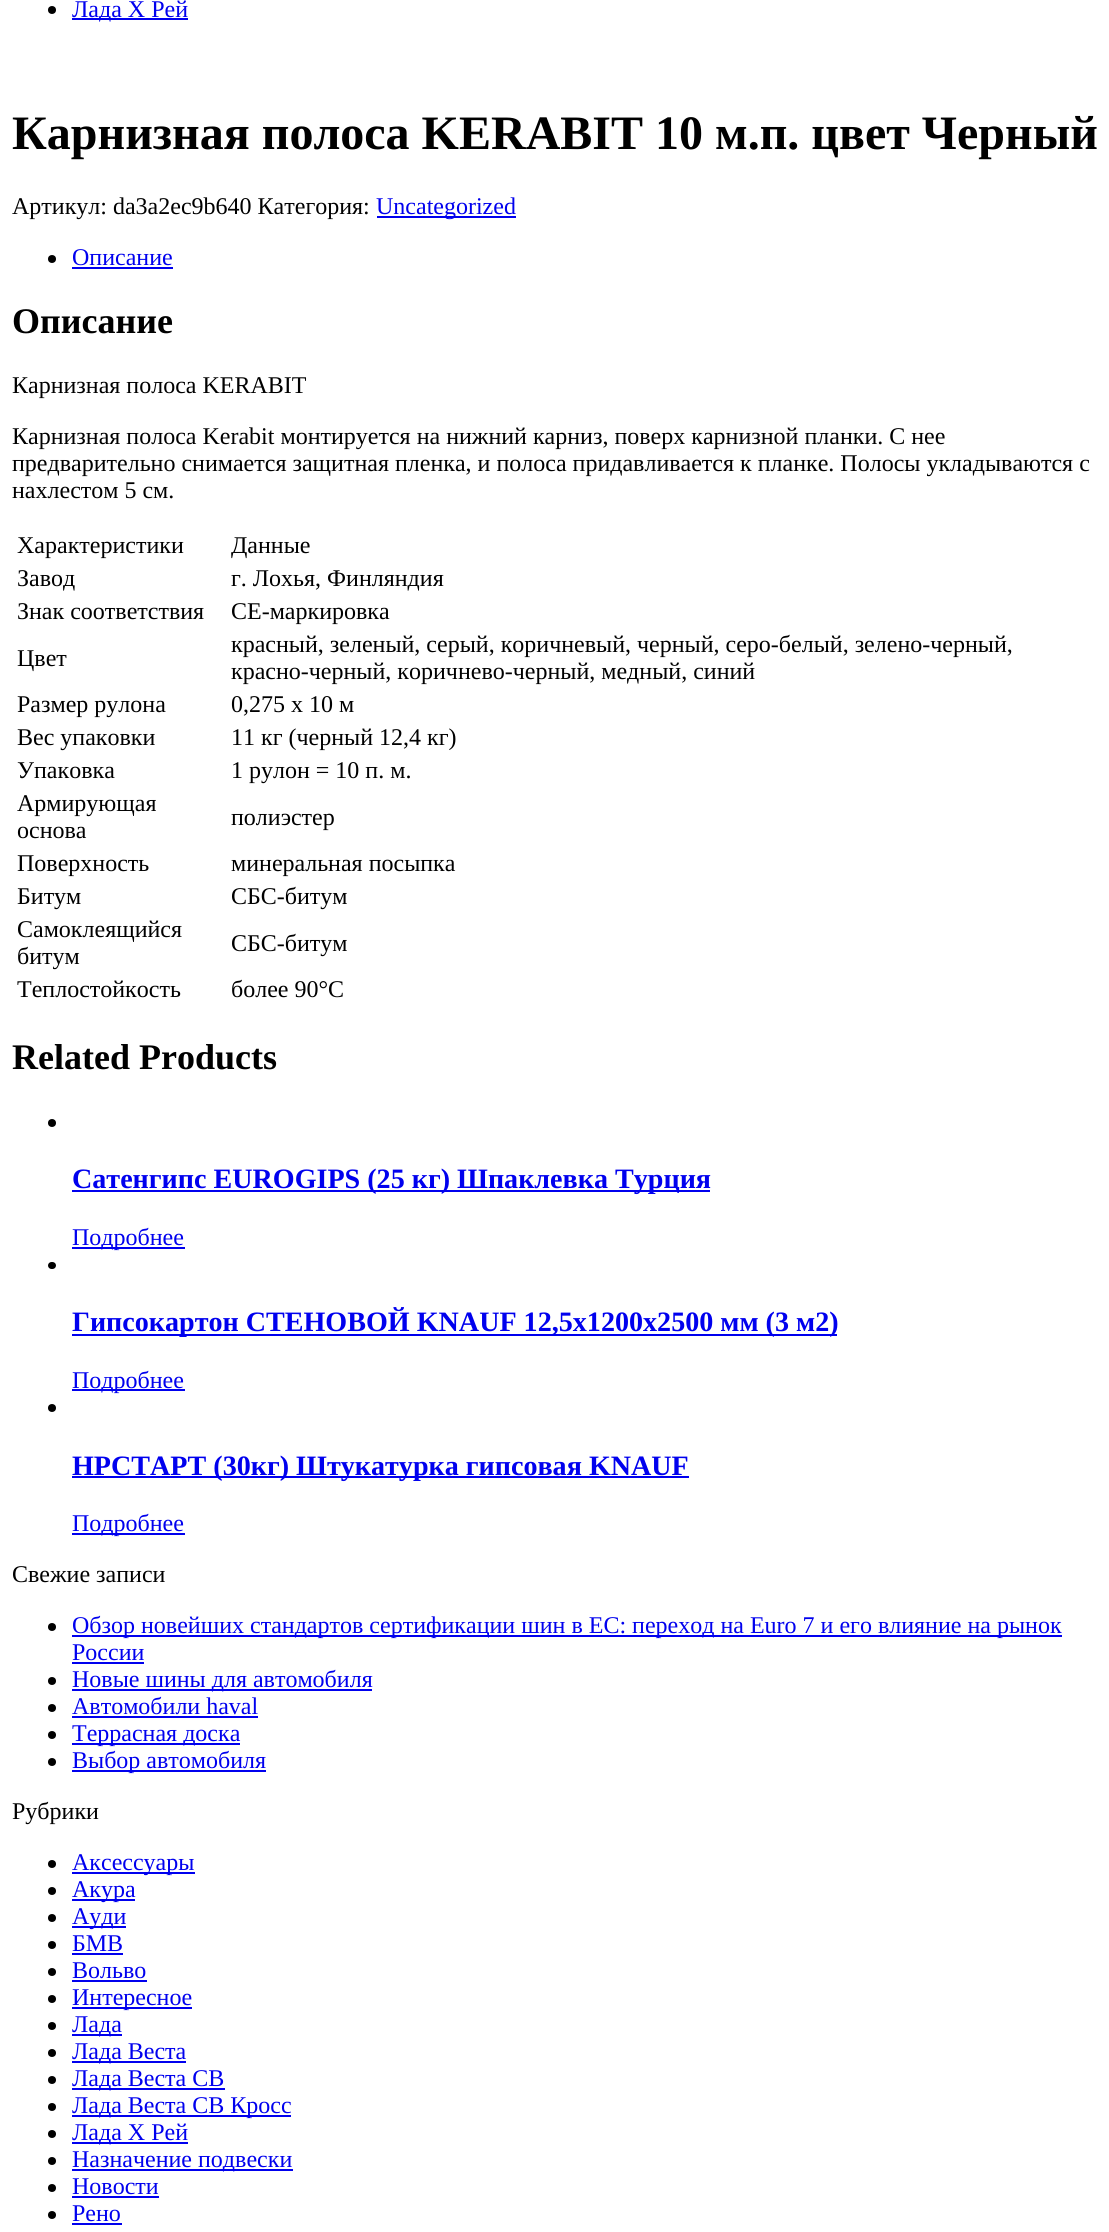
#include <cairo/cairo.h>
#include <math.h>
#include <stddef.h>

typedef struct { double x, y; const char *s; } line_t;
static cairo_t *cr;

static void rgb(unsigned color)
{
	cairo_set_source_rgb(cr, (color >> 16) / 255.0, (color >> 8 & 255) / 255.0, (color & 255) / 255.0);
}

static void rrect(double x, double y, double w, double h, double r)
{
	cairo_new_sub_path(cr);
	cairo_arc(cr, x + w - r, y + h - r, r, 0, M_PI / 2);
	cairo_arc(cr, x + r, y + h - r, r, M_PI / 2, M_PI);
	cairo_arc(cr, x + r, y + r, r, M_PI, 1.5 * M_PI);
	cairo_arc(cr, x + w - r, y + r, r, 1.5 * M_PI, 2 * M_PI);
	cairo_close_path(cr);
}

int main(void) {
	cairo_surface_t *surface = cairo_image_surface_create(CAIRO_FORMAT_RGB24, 1109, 2232);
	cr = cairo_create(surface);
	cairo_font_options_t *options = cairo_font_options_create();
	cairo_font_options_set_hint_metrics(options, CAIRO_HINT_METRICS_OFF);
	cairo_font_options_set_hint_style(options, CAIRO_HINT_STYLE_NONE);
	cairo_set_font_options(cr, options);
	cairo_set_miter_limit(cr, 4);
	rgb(0xffffff);
	cairo_paint(cr);
	rgb(0x000000);
	cairo_arc(cr, 52, 10, 4, 0, 2 * M_PI);
	cairo_fill(cr);
	rgb(0x0000ee);
	cairo_rectangle(cr, 72, 18, 116, 2);
	cairo_fill(cr);
	cairo_rectangle(cr, 377, 216, 139, 2);
	cairo_fill(cr);
	rgb(0x000000);
	cairo_arc(cr, 52, 259, 4, 0, 2 * M_PI);
	cairo_fill(cr);
	rgb(0x0000ee);
	cairo_rectangle(cr, 72, 267, 101, 2);
	cairo_fill(cr);
	rgb(0x000000);
	cairo_arc(cr, 52, 1123, 4, 0, 2 * M_PI);
	cairo_fill(cr);
	rgb(0x0000ee);
	cairo_rectangle(cr, 72, 1190, 638, 2);
	cairo_fill(cr);
	cairo_rectangle(cr, 72, 1247, 113, 2);
	cairo_fill(cr);
	rgb(0x000000);
	rrect(48, 1262, 8, 7, 3.5);
	cairo_fill(cr);
	rgb(0x0000ee);
	cairo_rectangle(cr, 72, 1334, 765, 2);
	cairo_fill(cr);
	cairo_rectangle(cr, 72, 1389, 113, 2);
	cairo_fill(cr);
	rgb(0x000000);
	cairo_arc(cr, 52, 1408, 4, 0, 2 * M_PI);
	cairo_fill(cr);
	rgb(0x0000ee);
	cairo_rectangle(cr, 72, 1476, 617, 2);
	cairo_fill(cr);
	cairo_rectangle(cr, 72, 1533, 113, 2);
	cairo_fill(cr);
	rgb(0x000000);
	cairo_arc(cr, 52, 1627, 4, 0, 2 * M_PI);
	cairo_fill(cr);
	rgb(0x0000ee);
	cairo_rectangle(cr, 72, 1635, 990, 2);
	cairo_fill(cr);
	cairo_rectangle(cr, 72, 1662, 72, 2);
	cairo_fill(cr);
	rgb(0x000000);
	cairo_arc(cr, 52, 1681, 4, 0, 2 * M_PI);
	cairo_fill(cr);
	rgb(0x0000ee);
	cairo_rectangle(cr, 72, 1689, 300, 2);
	cairo_fill(cr);
	rgb(0x000000);
	cairo_arc(cr, 52, 1708, 4, 0, 2 * M_PI);
	cairo_fill(cr);
	rgb(0x0000ee);
	cairo_rectangle(cr, 72, 1716, 186, 2);
	cairo_fill(cr);
	rgb(0x000000);
	cairo_arc(cr, 52, 1735, 4, 0, 2 * M_PI);
	cairo_fill(cr);
	rgb(0x0000ee);
	cairo_rectangle(cr, 72, 1743, 168, 2);
	cairo_fill(cr);
	rgb(0x000000);
	cairo_arc(cr, 52, 1762, 4, 0, 2 * M_PI);
	cairo_fill(cr);
	rgb(0x0000ee);
	cairo_rectangle(cr, 72, 1770, 194, 2);
	cairo_fill(cr);
	rgb(0x000000);
	cairo_arc(cr, 52, 1864, 4, 0, 2 * M_PI);
	cairo_fill(cr);
	rgb(0x0000ee);
	cairo_rectangle(cr, 72, 1872, 123, 2);
	cairo_fill(cr);
	rgb(0x000000);
	cairo_arc(cr, 52, 1891, 4, 0, 2 * M_PI);
	cairo_fill(cr);
	rgb(0x0000ee);
	cairo_rectangle(cr, 72, 1899, 63, 2);
	cairo_fill(cr);
	rgb(0x000000);
	cairo_arc(cr, 52, 1918, 4, 0, 2 * M_PI);
	cairo_fill(cr);
	rgb(0x0000ee);
	cairo_rectangle(cr, 72, 1926, 54, 2);
	cairo_fill(cr);
	rgb(0x000000);
	cairo_arc(cr, 52, 1945, 4, 0, 2 * M_PI);
	cairo_fill(cr);
	rgb(0x0000ee);
	cairo_rectangle(cr, 72, 1953, 51, 2);
	cairo_fill(cr);
	rgb(0x000000);
	cairo_arc(cr, 52, 1972, 4, 0, 2 * M_PI);
	cairo_fill(cr);
	rgb(0x0000ee);
	cairo_rectangle(cr, 72, 1980, 75, 2);
	cairo_fill(cr);
	rgb(0x000000);
	cairo_arc(cr, 52, 1999, 4, 0, 2 * M_PI);
	cairo_fill(cr);
	rgb(0x0000ee);
	cairo_rectangle(cr, 72, 2007, 120, 2);
	cairo_fill(cr);
	rgb(0x000000);
	cairo_arc(cr, 52, 2026, 4, 0, 2 * M_PI);
	cairo_fill(cr);
	rgb(0x0000ee);
	cairo_rectangle(cr, 72, 2034, 50, 2);
	cairo_fill(cr);
	rgb(0x000000);
	cairo_arc(cr, 52, 2053, 4, 0, 2 * M_PI);
	cairo_fill(cr);
	rgb(0x0000ee);
	cairo_rectangle(cr, 72, 2061, 114, 2);
	cairo_fill(cr);
	rgb(0x000000);
	cairo_arc(cr, 52, 2080, 4, 0, 2 * M_PI);
	cairo_fill(cr);
	rgb(0x0000ee);
	cairo_rectangle(cr, 72, 2088, 153, 2);
	cairo_fill(cr);
	rgb(0x000000);
	cairo_arc(cr, 52, 2107, 4, 0, 2 * M_PI);
	cairo_fill(cr);
	rgb(0x0000ee);
	cairo_rectangle(cr, 72, 2115, 219, 2);
	cairo_fill(cr);
	rgb(0x000000);
	cairo_arc(cr, 52, 2134, 4, 0, 2 * M_PI);
	cairo_fill(cr);
	rgb(0x0000ee);
	cairo_rectangle(cr, 72, 2142, 116, 2);
	cairo_fill(cr);
	rgb(0x000000);
	cairo_arc(cr, 52, 2161, 4, 0, 2 * M_PI);
	cairo_fill(cr);
	rgb(0x0000ee);
	cairo_rectangle(cr, 72, 2169, 221, 2);
	cairo_fill(cr);
	rgb(0x000000);
	cairo_arc(cr, 52, 2188, 4, 0, 2 * M_PI);
	cairo_fill(cr);
	rgb(0x0000ee);
	cairo_rectangle(cr, 72, 2196, 87, 2);
	cairo_fill(cr);
	rgb(0x000000);
	cairo_arc(cr, 52, 2215, 4, 0, 2 * M_PI);
	cairo_fill(cr);
	rgb(0x0000ee);
	cairo_rectangle(cr, 72, 2223, 50, 2);
	cairo_fill(cr);
	cairo_select_font_face(cr, "Liberation Serif", CAIRO_FONT_SLANT_NORMAL, CAIRO_FONT_WEIGHT_NORMAL);
	cairo_set_font_size(cr, 24);
	cairo_move_to(cr, 72, 17);
	cairo_show_text(cr, "Лада Х Рей");
	cairo_select_font_face(cr, "Liberation Serif", CAIRO_FONT_SLANT_NORMAL, CAIRO_FONT_WEIGHT_BOLD);
	cairo_set_font_size(cr, 48);
	rgb(0x000000);
	cairo_move_to(cr, 12, 149);
	cairo_show_text(cr, "Карнизная полоса KERABIT 10 м.п. цвет Черный");
	cairo_select_font_face(cr, "Liberation Serif", CAIRO_FONT_SLANT_NORMAL, CAIRO_FONT_WEIGHT_NORMAL);
	cairo_set_font_size(cr, 24);
	cairo_move_to(cr, 12, 214);
	cairo_show_text(cr, "Артикул: da3a2ec9b640 Категория:");
	rgb(0x0000ee);
	cairo_move_to(cr, 376, 214);
	cairo_show_text(cr, "Uncategorized");
	cairo_move_to(cr, 72, 265);
	cairo_show_text(cr, "Описание");
	cairo_select_font_face(cr, "Liberation Serif", CAIRO_FONT_SLANT_NORMAL, CAIRO_FONT_WEIGHT_BOLD);
	cairo_set_font_size(cr, 36);
	rgb(0x000000);
	cairo_move_to(cr, 12, 333);
	cairo_show_text(cr, "Описание");
	cairo_select_font_face(cr, "Liberation Serif", CAIRO_FONT_SLANT_NORMAL, CAIRO_FONT_WEIGHT_NORMAL);
	cairo_set_font_size(cr, 24);
	{
		static const line_t items[] = {
			{12, 393, "Карнизная полоса KERABIT"},
			{12, 444, "Карнизная полоса Kerabit монтируется на нижний карниз, поверх карнизной планки. С нее"},
			{12, 471, "предварительно снимается защитная пленка, и полоса придавливается к планке. Полосы укладываются с"},
			{12, 498, "нахлестом 5 см."},
			{17, 553, "Характеристики"},
			{231, 553, "Данные"},
			{17, 586, "Завод"},
			{231, 586, "г. Лохья, Финляндия"},
			{17, 619, "Знак соответствия"},
			{231, 619, "СЕ-маркировка"},
			{17, 666, "Цвет"},
			{231, 652, "красный, зеленый, серый, коричневый, черный, серо-белый, зелено-черный,"},
			{231, 679, "красно-черный, коричнево-черный, медный, синий"},
			{17, 712, "Размер рулона"},
			{231, 712, "0,275 х 10 м"},
			{17, 745, "Вес упаковки"},
			{231, 745, "11 кг (черный 12,4 кг)"},
			{17, 778, "Упаковка"},
			{231, 778, "1 рулон = 10 п. м."},
			{17, 811, "Армирующая"},
			{17, 838, "основа"},
			{231, 825, "полиэстер"},
			{17, 871, "Поверхность"},
			{231, 871, "минеральная посыпка"},
			{17, 904, "Битум"},
			{231, 904, "СБС-битум"},
			{17, 937, "Самоклеящийся"},
			{17, 964, "битум"},
			{231, 951, "СБС-битум"},
			{17, 997, "Теплостойкость"},
			{231, 997, "более 90°C"},
		};
		for (size_t i = 0; i < sizeof items / sizeof *items; i++) {
			cairo_move_to(cr, items[i].x, items[i].y);
			cairo_show_text(cr, items[i].s);
		}
	}
	cairo_select_font_face(cr, "Liberation Serif", CAIRO_FONT_SLANT_NORMAL, CAIRO_FONT_WEIGHT_BOLD);
	cairo_set_font_size(cr, 36);
	cairo_move_to(cr, 12, 1069);
	cairo_show_text(cr, "Related Products");
	cairo_set_font_size(cr, 28.1);
	rgb(0x0000ee);
	cairo_move_to(cr, 72, 1188);
	cairo_show_text(cr, "Сатенгипс EUROGIPS (25 кг) Шпаклевка Турция");
	cairo_select_font_face(cr, "Liberation Serif", CAIRO_FONT_SLANT_NORMAL, CAIRO_FONT_WEIGHT_NORMAL);
	cairo_set_font_size(cr, 24);
	cairo_move_to(cr, 72, 1245);
	cairo_show_text(cr, "Подробнее");
	cairo_select_font_face(cr, "Liberation Serif", CAIRO_FONT_SLANT_NORMAL, CAIRO_FONT_WEIGHT_BOLD);
	cairo_set_font_size(cr, 28.1);
	cairo_move_to(cr, 72, 1331);
	cairo_show_text(cr, "Гипсокартон СТЕНОВОЙ KNAUF 12,5х1200х2500 мм (3 м2)");
	cairo_select_font_face(cr, "Liberation Serif", CAIRO_FONT_SLANT_NORMAL, CAIRO_FONT_WEIGHT_NORMAL);
	cairo_set_font_size(cr, 24);
	cairo_move_to(cr, 72, 1388);
	cairo_show_text(cr, "Подробнее");
	cairo_select_font_face(cr, "Liberation Serif", CAIRO_FONT_SLANT_NORMAL, CAIRO_FONT_WEIGHT_BOLD);
	cairo_set_font_size(cr, 28.1);
	cairo_move_to(cr, 72, 1475);
	cairo_show_text(cr, "НРСТАРТ (30кг) Штукатурка гипсовая KNAUF");
	cairo_select_font_face(cr, "Liberation Serif", CAIRO_FONT_SLANT_NORMAL, CAIRO_FONT_WEIGHT_NORMAL);
	cairo_set_font_size(cr, 24);
	cairo_move_to(cr, 72, 1531);
	cairo_show_text(cr, "Подробнее");
	rgb(0x000000);
	cairo_move_to(cr, 12, 1582);
	cairo_show_text(cr, "Свежие записи");
	rgb(0x0000ee);
	{
		static const line_t items[] = {
			{72, 1633, "Обзор новейших стандартов сертификации шин в ЕС: переход на Euro 7 и его влияние на рынок"},
			{72, 1660, "России"},
			{72, 1687, "Новые шины для автомобиля"},
			{72, 1714, "Автомобили haval"},
			{72, 1741, "Террасная доска"},
			{72, 1768, "Выбор автомобиля"},
		};
		for (size_t i = 0; i < sizeof items / sizeof *items; i++) {
			cairo_move_to(cr, items[i].x, items[i].y);
			cairo_show_text(cr, items[i].s);
		}
	}
	rgb(0x000000);
	cairo_move_to(cr, 12, 1819);
	cairo_show_text(cr, "Рубрики");
	rgb(0x0000ee);
	{
		static const line_t items[] = {
			{72, 1870, "Аксессуары"},
			{72, 1897, "Акура"},
			{72, 1924, "Ауди"},
			{72, 1951, "БМВ"},
			{72, 1978, "Вольво"},
			{72, 2005, "Интересное"},
			{72, 2032, "Лада"},
			{72, 2059, "Лада Веста"},
			{72, 2086, "Лада Веста СВ"},
			{72, 2113, "Лада Веста СВ Кросс"},
			{72, 2140, "Лада Х Рей"},
			{72, 2167, "Назначение подвески"},
			{72, 2194, "Новости"},
			{72, 2221, "Рено"},
		};
		for (size_t i = 0; i < sizeof items / sizeof *items; i++) {
			cairo_move_to(cr, items[i].x, items[i].y);
			cairo_show_text(cr, items[i].s);
		}
	}
	cairo_surface_write_to_png(surface, "page.png");
	cairo_font_options_destroy(options);
	cairo_destroy(cr);
	cairo_surface_destroy(surface);
	return 0;
}
